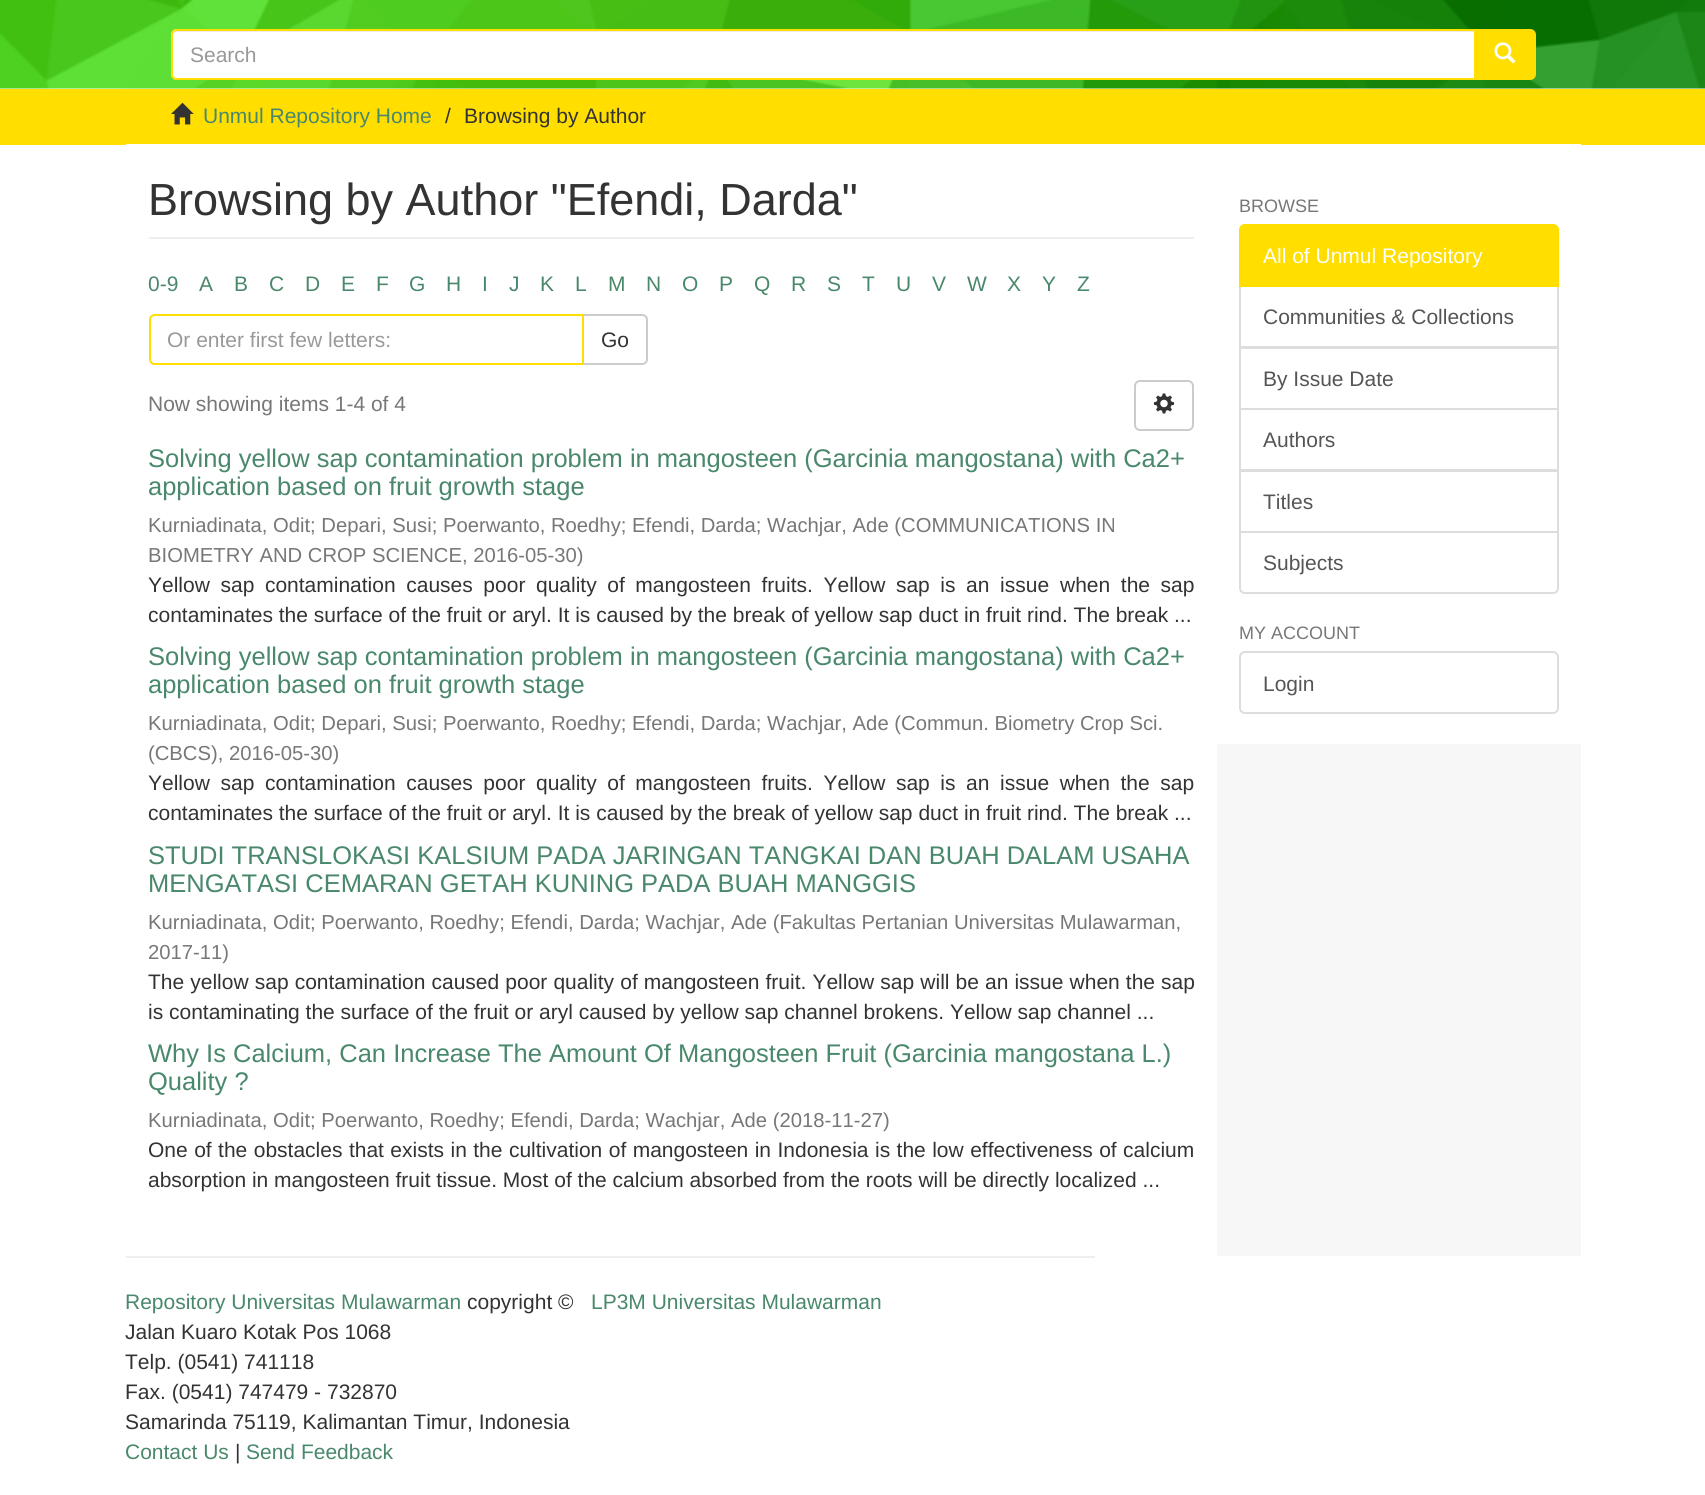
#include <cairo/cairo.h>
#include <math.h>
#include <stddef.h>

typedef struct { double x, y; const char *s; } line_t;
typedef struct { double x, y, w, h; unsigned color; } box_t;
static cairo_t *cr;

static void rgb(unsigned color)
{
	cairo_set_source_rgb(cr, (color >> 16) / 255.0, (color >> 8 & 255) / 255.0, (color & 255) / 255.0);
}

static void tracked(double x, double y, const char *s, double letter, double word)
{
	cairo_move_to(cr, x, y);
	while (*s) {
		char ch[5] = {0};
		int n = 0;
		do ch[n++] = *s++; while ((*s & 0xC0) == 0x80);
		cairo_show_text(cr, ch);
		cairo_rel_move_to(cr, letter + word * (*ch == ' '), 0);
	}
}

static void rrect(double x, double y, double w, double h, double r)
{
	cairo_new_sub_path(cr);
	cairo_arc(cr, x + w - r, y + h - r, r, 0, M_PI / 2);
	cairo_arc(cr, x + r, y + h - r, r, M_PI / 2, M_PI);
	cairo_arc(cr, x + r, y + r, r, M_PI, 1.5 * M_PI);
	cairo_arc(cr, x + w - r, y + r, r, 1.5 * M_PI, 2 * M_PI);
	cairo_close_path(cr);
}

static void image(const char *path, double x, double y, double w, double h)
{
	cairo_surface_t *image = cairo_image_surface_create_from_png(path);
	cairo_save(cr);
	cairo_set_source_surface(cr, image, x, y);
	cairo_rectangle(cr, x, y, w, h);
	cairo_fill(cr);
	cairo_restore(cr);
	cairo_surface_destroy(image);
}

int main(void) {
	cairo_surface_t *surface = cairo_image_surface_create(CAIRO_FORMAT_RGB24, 1705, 1495);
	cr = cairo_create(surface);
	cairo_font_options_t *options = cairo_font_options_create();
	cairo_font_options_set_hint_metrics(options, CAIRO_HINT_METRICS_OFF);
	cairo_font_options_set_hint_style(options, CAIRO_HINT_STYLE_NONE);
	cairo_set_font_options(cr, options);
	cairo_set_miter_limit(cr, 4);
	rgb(0xffffff);
	cairo_paint(cr);
	image("img/1.png", 0, 0, 1705, 89);
	rgb(0xffde00);
	cairo_new_path(cr);
	cairo_move_to(cr, 1476, 30);
	cairo_line_to(cr, 1530, 30);
	cairo_curve_to(cr, 1533, 30, 1535, 32, 1535, 35);
	cairo_line_to(cr, 1535, 74);
	cairo_curve_to(cr, 1535, 77, 1533, 79, 1530, 79);
	cairo_line_to(cr, 1476, 79);
	cairo_close_path(cr);
	cairo_fill_preserve(cr);
	cairo_stroke(cr);
	rgb(0xffffff);
	cairo_new_path(cr);
	cairo_move_to(cr, 177, 29);
	cairo_line_to(cr, 1476, 29);
	cairo_line_to(cr, 1476, 80);
	cairo_line_to(cr, 177, 80);
	cairo_curve_to(cr, 173.5, 80, 171, 77.5, 171, 74);
	cairo_line_to(cr, 171, 35);
	cairo_curve_to(cr, 171, 31.5, 173.5, 29, 177, 29);
	cairo_close_path(cr);
	cairo_fill(cr);
	rgb(0xececec);
	cairo_new_path(cr);
	cairo_move_to(cr, 177, 32);
	cairo_line_to(cr, 1474, 32);
	cairo_line_to(cr, 1474, 78);
	cairo_line_to(cr, 1475, 78);
	cairo_line_to(cr, 1475, 30);
	cairo_line_to(cr, 178, 30);
	cairo_curve_to(cr, 176, 30, 174, 32, 173, 34);
	cairo_curve_to(cr, 174, 33, 176, 32, 177, 32);
	cairo_close_path(cr);
	cairo_fill(cr);
	cairo_new_path(cr);
	cairo_move_to(cr, 177, 30);
	cairo_line_to(cr, 1475, 30);
	cairo_line_to(cr, 1475, 79);
	cairo_line_to(cr, 177, 79);
	cairo_curve_to(cr, 174, 79, 172, 77, 172, 74);
	cairo_line_to(cr, 172, 35);
	cairo_curve_to(cr, 172, 32, 174, 30, 177, 30);
	cairo_close_path(cr);
	rgb(0xffde00);
	cairo_stroke(cr);
	image("img/2.png", 1494, 42, 22, 22);
	cairo_rectangle(cr, 0, 89, 1705, 56);
	cairo_fill(cr);
	image("img/3.png", 171, 102, 23, 23);
	{
		static const box_t items[] = {
			{1217, 744, 364, 512, 0xf7f7f7},
			{126, 144, 1455, 1, 0xffffff},
			{149, 237, 1045, 2, 0xeeeeee},
		};
		for (size_t i = 0; i < sizeof items / sizeof *items; i++) {
			rgb(items[i].color);
			cairo_rectangle(cr, items[i].x, items[i].y, items[i].w, items[i].h);
			cairo_fill(cr);
		}
	}
	cairo_new_path(cr);
	cairo_move_to(cr, 583, 315);
	cairo_line_to(cr, 642, 315);
	cairo_curve_to(cr, 645, 315, 647, 317, 647, 320);
	cairo_line_to(cr, 647, 359);
	cairo_curve_to(cr, 647, 362, 645, 364, 642, 364);
	cairo_line_to(cr, 583, 364);
	cairo_close_path(cr);
	rgb(0xcccccc);
	cairo_stroke(cr);
	rgb(0xffffff);
	cairo_new_path(cr);
	cairo_move_to(cr, 155, 315);
	cairo_line_to(cr, 583, 315);
	cairo_line_to(cr, 583, 364);
	cairo_line_to(cr, 155, 364);
	cairo_curve_to(cr, 152, 364, 150, 362, 150, 359);
	cairo_line_to(cr, 150, 320);
	cairo_curve_to(cr, 150, 317, 152, 315, 155, 315);
	cairo_close_path(cr);
	cairo_fill_preserve(cr);
	rgb(0xffde00);
	cairo_stroke(cr);
	rrect(1135, 381, 58, 49, 5);
	rgb(0xcccccc);
	cairo_stroke(cr);
	image("img/4.png", 1153, 393, 22, 21);
	cairo_rectangle(cr, 1240, 286, 318, 61);
	rgb(0xdddddd);
	cairo_stroke(cr);
	rgb(0xffde00);
	cairo_new_path(cr);
	cairo_move_to(cr, 1245, 225);
	cairo_line_to(cr, 1553, 225);
	cairo_curve_to(cr, 1556, 225, 1558, 227, 1558, 230);
	cairo_line_to(cr, 1558, 286);
	cairo_line_to(cr, 1240, 286);
	cairo_line_to(cr, 1240, 230);
	cairo_curve_to(cr, 1240, 227, 1242, 225, 1245, 225);
	cairo_close_path(cr);
	cairo_fill_preserve(cr);
	cairo_stroke(cr);
	cairo_rectangle(cr, 1240, 348, 318, 61);
	rgb(0xdddddd);
	cairo_stroke(cr);
	cairo_rectangle(cr, 1240, 409, 318, 61);
	cairo_stroke(cr);
	cairo_rectangle(cr, 1240, 471, 318, 61);
	cairo_stroke(cr);
	rgb(0xffffff);
	cairo_new_path(cr);
	cairo_move_to(cr, 1240, 532);
	cairo_line_to(cr, 1558, 532);
	cairo_line_to(cr, 1558, 588);
	cairo_curve_to(cr, 1558, 591, 1556, 593, 1553, 593);
	cairo_line_to(cr, 1245, 593);
	cairo_curve_to(cr, 1242, 593, 1240, 591, 1240, 588);
	cairo_close_path(cr);
	cairo_fill_preserve(cr);
	rgb(0xdddddd);
	cairo_stroke(cr);
	rrect(1240, 652, 318, 61, 5);
	cairo_stroke(cr);
	rgb(0xeeeeee);
	cairo_rectangle(cr, 126, 1256, 969, 2);
	cairo_fill(cr);
	cairo_select_font_face(cr, "Liberation Sans", CAIRO_FONT_SLANT_NORMAL, CAIRO_FONT_WEIGHT_NORMAL);
	cairo_set_font_size(cr, 21);
	rgb(0x999999);
	cairo_move_to(cr, 190, 62);
	cairo_show_text(cr, "Search");
	rgb(0x49886b);
	cairo_move_to(cr, 203, 123);
	cairo_show_text(cr, "Unmul Repository Home");
	rgb(0x333333);
	cairo_move_to(cr, 445, 123);
	cairo_show_text(cr, "/");
	cairo_move_to(cr, 464, 123);
	cairo_show_text(cr, "Browsing by Author");
	cairo_set_font_size(cr, 45);
	cairo_move_to(cr, 148, 215);
	cairo_show_text(cr, "Browsing by Author \"Efendi, Darda\"");
	cairo_set_font_size(cr, 21);
	rgb(0x49886b);
	{
		static const line_t items[] = {
			{148, 291, "0-9"},
			{199, 291, "A"},
			{234, 291, "B"},
			{269, 291, "C"},
			{305, 291, "D"},
			{341, 291, "E"},
			{376, 291, "F"},
			{409, 291, "G"},
			{446, 291, "H"},
			{482, 291, "I"},
			{509, 291, "J"},
			{540, 291, "K"},
			{575, 291, "L"},
			{608, 291, "M"},
			{646, 291, "N"},
			{682, 291, "O"},
			{719, 291, "P"},
			{754, 291, "Q"},
			{791, 291, "R"},
			{827, 291, "S"},
			{862, 291, "T"},
			{896, 291, "U"},
			{932, 291, "V"},
			{967, 291, "W"},
			{1007, 291, "X"},
			{1042, 291, "Y"},
			{1077, 291, "Z"},
		};
		for (size_t i = 0; i < sizeof items / sizeof *items; i++) {
			cairo_move_to(cr, items[i].x, items[i].y);
			cairo_show_text(cr, items[i].s);
		}
	}
	rgb(0x999999);
	cairo_move_to(cr, 167, 347);
	cairo_show_text(cr, "Or enter first few letters:");
	rgb(0x333333);
	cairo_move_to(cr, 601, 347);
	cairo_show_text(cr, "Go");
	rgb(0x777777);
	cairo_move_to(cr, 148, 411);
	cairo_show_text(cr, "Now showing items 1-4 of 4");
	cairo_set_font_size(cr, 25.5);
	rgb(0x49886b);
	cairo_move_to(cr, 148, 467);
	cairo_show_text(cr, "Solving yellow sap contamination problem in mangosteen (Garcinia mangostana) with Ca2+");
	cairo_move_to(cr, 148, 495);
	cairo_show_text(cr, "application based on fruit growth stage");
	cairo_set_font_size(cr, 20.25);
	rgb(0x777777);
	cairo_move_to(cr, 148, 532);
	cairo_show_text(cr, "Kurniadinata, Odit; Depari, Susi; Poerwanto, Roedhy; Efendi, Darda; Wachjar, Ade (COMMUNICATIONS IN");
	cairo_move_to(cr, 148, 562);
	cairo_show_text(cr, "BIOMETRY AND CROP SCIENCE, 2016-05-30)");
	cairo_set_font_size(cr, 21);
	rgb(0x333333);
	tracked(148, 592, "Yellow sap contamination causes poor quality of mangosteen fruits. Yellow sap is an issue", 0, 4.75);
	tracked(1060, 592, "when the sap", 0, 4.75);
	cairo_move_to(cr, 148, 622);
	cairo_show_text(cr, "contaminates the surface of the fruit or aryl. It is caused by the break of yellow sap duct in fruit rind. The break ...");
	cairo_set_font_size(cr, 25.5);
	rgb(0x49886b);
	cairo_move_to(cr, 148, 665);
	cairo_show_text(cr, "Solving yellow sap contamination problem in mangosteen (Garcinia mangostana) with Ca2+");
	cairo_move_to(cr, 148, 693);
	cairo_show_text(cr, "application based on fruit growth stage");
	cairo_set_font_size(cr, 20.25);
	rgb(0x777777);
	cairo_move_to(cr, 148, 730);
	cairo_show_text(cr, "Kurniadinata, Odit; Depari, Susi; Poerwanto, Roedhy; Efendi, Darda; Wachjar, Ade (Commun. Biometry Crop Sci.");
	cairo_move_to(cr, 148, 760);
	cairo_show_text(cr, "(CBCS), 2016-05-30)");
	cairo_set_font_size(cr, 21);
	rgb(0x333333);
	tracked(148, 790, "Yellow sap contamination causes poor quality of mangosteen fruits. Yellow sap is an issue when the sap", 0, 4.75);
	cairo_move_to(cr, 148, 820);
	cairo_show_text(cr, "contaminates the surface of the fruit or aryl. It is caused by the break of yellow sap duct in fruit rind. The break ...");
	cairo_set_font_size(cr, 25.5);
	rgb(0x49886b);
	cairo_move_to(cr, 148, 864);
	cairo_show_text(cr, "STUDI TRANSLOKASI KALSIUM PADA JARINGAN TANGKAI DAN BUAH DALAM USAHA");
	cairo_move_to(cr, 148, 892);
	cairo_show_text(cr, "MENGATASI CEMARAN GETAH KUNING PADA BUAH MANGGIS");
	cairo_set_font_size(cr, 20.25);
	rgb(0x777777);
	cairo_move_to(cr, 148, 929);
	cairo_show_text(cr, "Kurniadinata, Odit; Poerwanto, Roedhy; Efendi, Darda; Wachjar, Ade (Fakultas Pertanian Universitas Mulawarman,");
	cairo_move_to(cr, 148, 959);
	cairo_show_text(cr, "2017-11)");
	cairo_set_font_size(cr, 21);
	rgb(0x333333);
	tracked(148, 989, "The yellow sap contamination caused poor quality of mangosteen fruit. Yellow sap will be an issue when the sap", 0, 0.25);
	cairo_move_to(cr, 148, 1019);
	cairo_show_text(cr, "is contaminating the surface of the fruit or aryl caused by yellow sap channel brokens. Yellow sap channel ...");
	cairo_set_font_size(cr, 25.5);
	rgb(0x49886b);
	cairo_move_to(cr, 148, 1062);
	cairo_show_text(cr, "Why Is Calcium, Can Increase The Amount Of Mangosteen Fruit (Garcinia mangostana L.)");
	cairo_move_to(cr, 148, 1090);
	cairo_show_text(cr, "Quality ?");
	cairo_set_font_size(cr, 20.25);
	rgb(0x777777);
	cairo_move_to(cr, 148, 1127);
	cairo_show_text(cr, "Kurniadinata, Odit; Poerwanto, Roedhy; Efendi, Darda; Wachjar, Ade (2018-11-27)");
	cairo_set_font_size(cr, 21);
	rgb(0x333333);
	tracked(148, 1157, "One of the obstacles that exists in the cultivation of mangosteen in Indonesia is the low effectiveness of calcium", 0, 0.6);
	cairo_move_to(cr, 148, 1187);
	cairo_show_text(cr, "absorption in mangosteen fruit tissue. Most of the calcium absorbed from the roots will be directly localized ...");
	cairo_set_font_size(cr, 18);
	rgb(0x777777);
	cairo_move_to(cr, 1239, 212);
	cairo_show_text(cr, "BROWSE");
	cairo_set_font_size(cr, 21);
	rgb(0xffffff);
	cairo_move_to(cr, 1263, 263);
	cairo_show_text(cr, "All of Unmul Repository");
	rgb(0x555555);
	{
		static const line_t items[] = {
			{1263, 324, "Communities & Collections"},
			{1263, 386, "By Issue Date"},
			{1263, 447, "Authors"},
			{1263, 509, "Titles"},
			{1263, 570, "Subjects"},
		};
		for (size_t i = 0; i < sizeof items / sizeof *items; i++) {
			cairo_move_to(cr, items[i].x, items[i].y);
			cairo_show_text(cr, items[i].s);
		}
	}
	cairo_set_font_size(cr, 18);
	rgb(0x777777);
	cairo_move_to(cr, 1239, 639);
	cairo_show_text(cr, "MY ACCOUNT");
	cairo_set_font_size(cr, 21);
	rgb(0x555555);
	cairo_move_to(cr, 1263, 691);
	cairo_show_text(cr, "Login");
	rgb(0x49886b);
	cairo_move_to(cr, 125, 1309);
	cairo_show_text(cr, "Repository Universitas Mulawarman");
	rgb(0x333333);
	cairo_move_to(cr, 467, 1309);
	cairo_show_text(cr, "copyright ©");
	rgb(0x49886b);
	cairo_move_to(cr, 591, 1309);
	cairo_show_text(cr, "LP3M Universitas Mulawarman");
	rgb(0x333333);
	{
		static const line_t items[] = {
			{125, 1339, "Jalan Kuaro Kotak Pos 1068"},
			{125, 1369, "Telp. (0541) 741118"},
			{125, 1399, "Fax. (0541) 747479 - 732870"},
			{125, 1429, "Samarinda 75119, Kalimantan Timur, Indonesia"},
		};
		for (size_t i = 0; i < sizeof items / sizeof *items; i++) {
			cairo_move_to(cr, items[i].x, items[i].y);
			cairo_show_text(cr, items[i].s);
		}
	}
	rgb(0x49886b);
	cairo_move_to(cr, 125, 1459);
	cairo_show_text(cr, "Contact Us");
	rgb(0x333333);
	cairo_move_to(cr, 235, 1459);
	cairo_show_text(cr, "|");
	rgb(0x49886b);
	cairo_move_to(cr, 246, 1459);
	cairo_show_text(cr, "Send Feedback");
	cairo_surface_write_to_png(surface, "page.png");
	cairo_font_options_destroy(options);
	cairo_destroy(cr);
	cairo_surface_destroy(surface);
	return 0;
}
